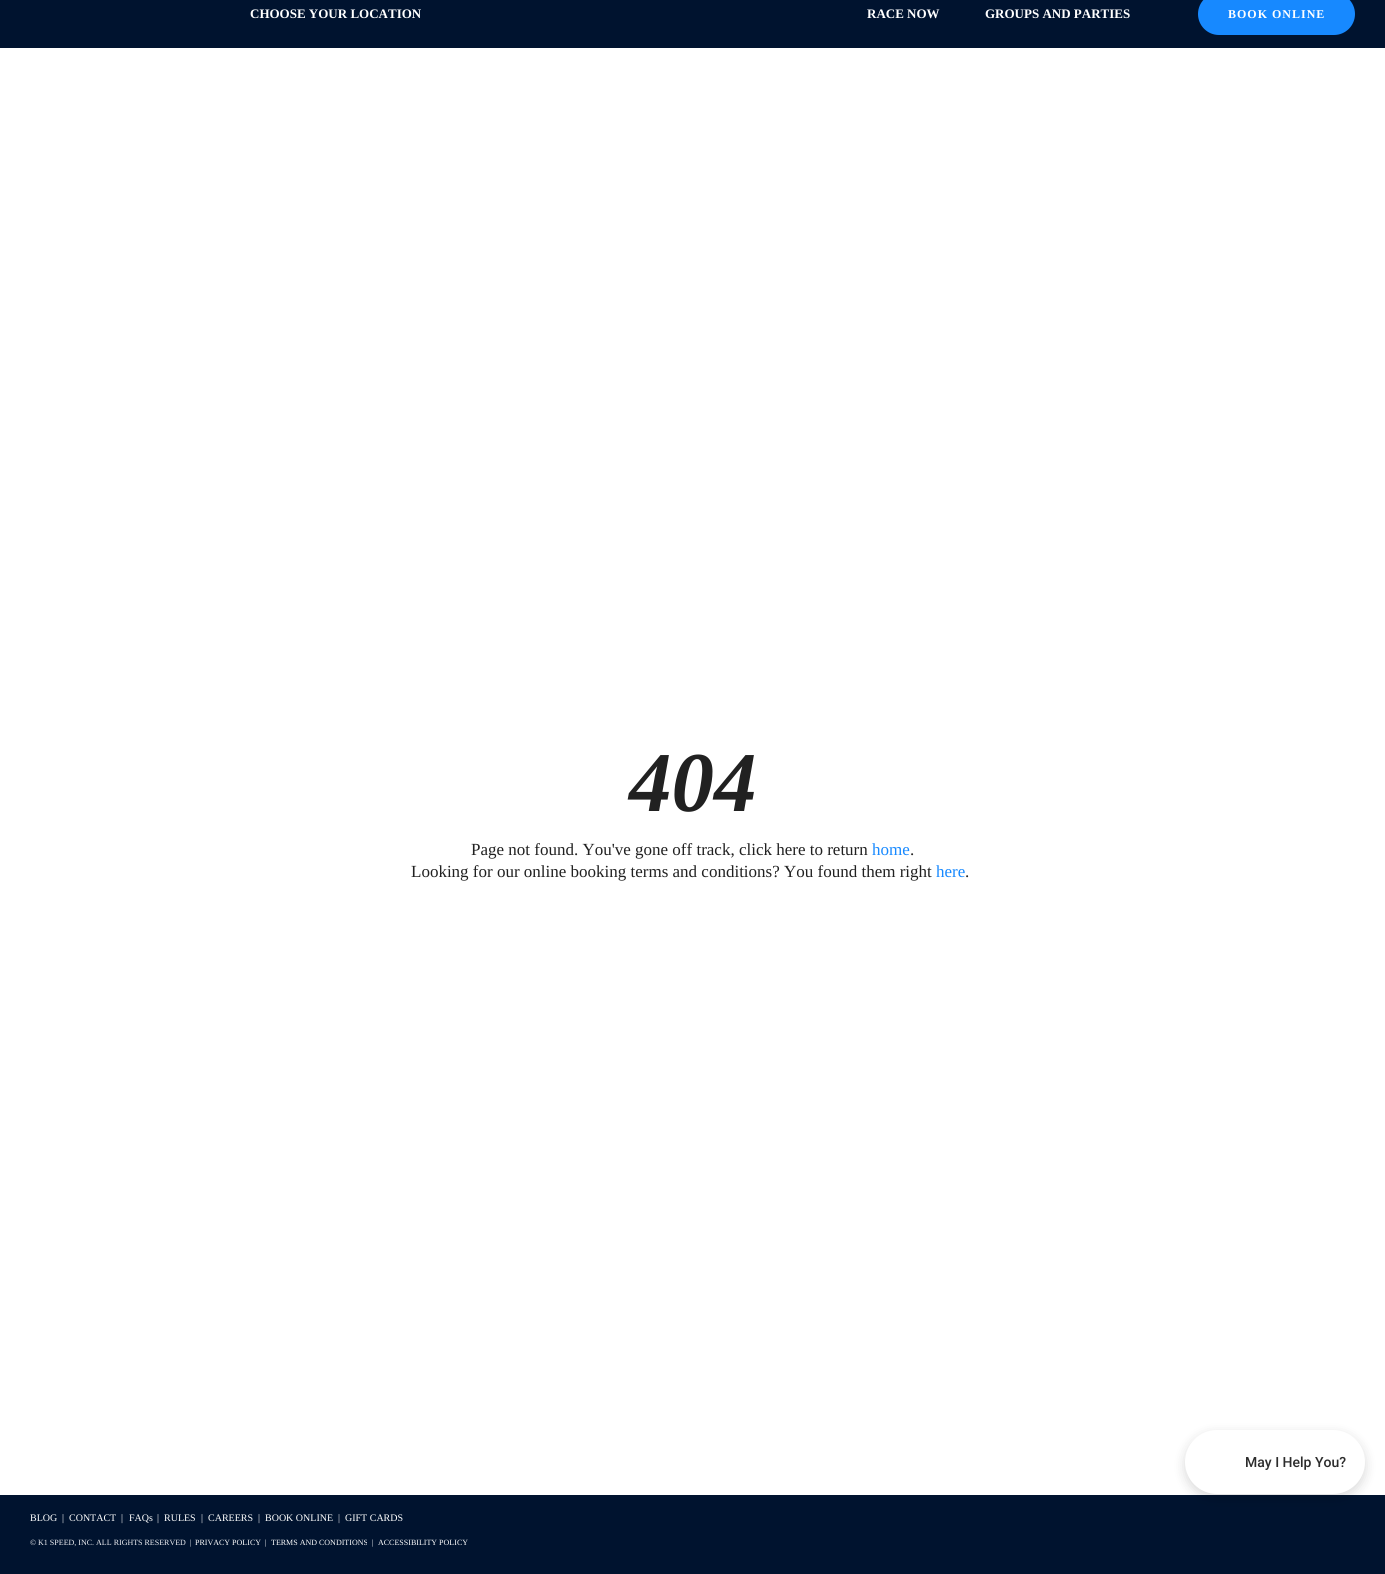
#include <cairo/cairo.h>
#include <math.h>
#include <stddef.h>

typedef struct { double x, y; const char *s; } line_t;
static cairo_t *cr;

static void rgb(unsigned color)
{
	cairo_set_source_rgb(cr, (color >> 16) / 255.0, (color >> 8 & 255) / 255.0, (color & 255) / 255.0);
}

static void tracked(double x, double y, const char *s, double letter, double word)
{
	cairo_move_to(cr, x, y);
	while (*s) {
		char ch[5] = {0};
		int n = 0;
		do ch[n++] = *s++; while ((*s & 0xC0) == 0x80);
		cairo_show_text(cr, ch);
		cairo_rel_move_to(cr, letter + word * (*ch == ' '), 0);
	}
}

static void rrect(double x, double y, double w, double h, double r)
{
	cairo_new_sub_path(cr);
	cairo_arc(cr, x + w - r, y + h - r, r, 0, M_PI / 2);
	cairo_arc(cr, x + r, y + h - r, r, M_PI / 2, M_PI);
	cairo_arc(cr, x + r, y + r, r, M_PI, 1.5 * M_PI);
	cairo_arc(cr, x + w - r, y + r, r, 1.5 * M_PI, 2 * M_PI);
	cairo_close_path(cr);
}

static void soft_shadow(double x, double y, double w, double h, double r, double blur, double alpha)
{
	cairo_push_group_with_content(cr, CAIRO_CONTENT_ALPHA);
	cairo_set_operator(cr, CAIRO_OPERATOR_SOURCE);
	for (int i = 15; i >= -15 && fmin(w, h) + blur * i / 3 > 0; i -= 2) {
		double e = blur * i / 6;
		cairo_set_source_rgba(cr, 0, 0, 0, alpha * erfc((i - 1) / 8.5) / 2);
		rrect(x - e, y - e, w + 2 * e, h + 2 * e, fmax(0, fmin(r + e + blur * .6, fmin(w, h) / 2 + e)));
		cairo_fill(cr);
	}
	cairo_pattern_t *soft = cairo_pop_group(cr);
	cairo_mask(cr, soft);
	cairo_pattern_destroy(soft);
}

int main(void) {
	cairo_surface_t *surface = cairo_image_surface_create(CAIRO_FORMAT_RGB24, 1385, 1574);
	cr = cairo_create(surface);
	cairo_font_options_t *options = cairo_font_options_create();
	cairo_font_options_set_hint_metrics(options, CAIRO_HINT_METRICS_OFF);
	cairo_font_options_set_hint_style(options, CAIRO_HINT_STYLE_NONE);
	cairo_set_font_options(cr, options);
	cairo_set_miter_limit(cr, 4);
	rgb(0xffffff);
	cairo_paint(cr);
	rgb(0x00132f);
	cairo_rectangle(cr, 0, 0, 1385, 48);
	cairo_fill(cr);
	rgb(0x1789ff);
	rrect(1198, -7, 157, 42, 21);
	cairo_fill(cr);
	rgb(0x00132f);
	cairo_rectangle(cr, 0, 1495, 1385, 79);
	cairo_fill(cr);
	rgb(0x000000);
	soft_shadow(1185, 1434, 180, 64, 32, 6, 0.15);
	rgb(0xffffff);
	rrect(1185, 1430, 180, 64, 32);
	cairo_fill(cr);
	cairo_select_font_face(cr, "Liberation Serif", CAIRO_FONT_SLANT_NORMAL, CAIRO_FONT_WEIGHT_BOLD);
	cairo_set_font_size(cr, 13);
	{
		static const line_t items[] = {
			{250, 18, "CHOOSE YOUR LOCATION"},
			{867, 18, "RACE NOW"},
			{985, 18, "GROUPS AND PARTIES"},
		};
		for (size_t i = 0; i < sizeof items / sizeof *items; i++) {
			cairo_move_to(cr, items[i].x, items[i].y);
			cairo_show_text(cr, items[i].s);
		}
	}
	cairo_set_font_size(cr, 12);
	tracked(1228, 18, "BOOK ONLINE", 1, 0);
	cairo_select_font_face(cr, "Liberation Serif", CAIRO_FONT_SLANT_ITALIC, CAIRO_FONT_WEIGHT_BOLD);
	cairo_set_font_size(cr, 85);
	rgb(0x212121);
	cairo_move_to(cr, 629, 811);
	cairo_show_text(cr, "404");
	cairo_select_font_face(cr, "Liberation Serif", CAIRO_FONT_SLANT_NORMAL, CAIRO_FONT_WEIGHT_NORMAL);
	cairo_set_font_size(cr, 17);
	cairo_move_to(cr, 471, 855);
	cairo_show_text(cr, "Page not found. You've gone off track, click here to return");
	rgb(0x1789ff);
	cairo_move_to(cr, 872, 855);
	cairo_show_text(cr, "home");
	rgb(0x212121);
	cairo_move_to(cr, 910, 855);
	cairo_show_text(cr, ".");
	cairo_move_to(cr, 411, 877);
	cairo_show_text(cr, "Looking for our online booking terms and conditions? You found them right");
	rgb(0x1789ff);
	cairo_move_to(cr, 936, 877);
	cairo_show_text(cr, "here");
	rgb(0x212121);
	cairo_move_to(cr, 965, 877);
	cairo_show_text(cr, ".");
	cairo_set_font_size(cr, 10);
	rgb(0xffffff);
	{
		static const line_t items[] = {
			{30, 1521, "BLOG"},
			{62, 1521, "|"},
			{69, 1521, "CONTACT"},
			{121, 1521, "|"},
			{129, 1521, "FAQs"},
			{157, 1521, "|"},
			{164, 1521, "RULES"},
			{201, 1521, "|"},
			{208, 1521, "CAREERS"},
			{258, 1521, "|"},
			{265, 1521, "BOOK ONLINE"},
		};
		for (size_t i = 0; i < sizeof items / sizeof *items; i++) {
			cairo_move_to(cr, items[i].x, items[i].y);
			cairo_show_text(cr, items[i].s);
		}
	}
	rgb(0xeeeff3);
	cairo_move_to(cr, 338, 1521);
	cairo_show_text(cr, "|");
	rgb(0xffffff);
	cairo_move_to(cr, 345, 1521);
	cairo_show_text(cr, "GIFT CARDS");
	cairo_set_font_size(cr, 8);
	rgb(0xeeeff3);
	cairo_move_to(cr, 30, 1545);
	cairo_show_text(cr, "© K1 SPEED, INC. ALL RIGHTS RESERVED  |");
	rgb(0xffffff);
	{
		static const line_t items[] = {
			{195, 1545, "PRIVACY POLICY"},
			{265, 1545, "|"},
			{271, 1545, "TERMS AND CONDITIONS"},
			{372, 1545, "|"},
			{378, 1545, "ACCESSIBILITY POLICY"},
		};
		for (size_t i = 0; i < sizeof items / sizeof *items; i++) {
			cairo_move_to(cr, items[i].x, items[i].y);
			cairo_show_text(cr, items[i].s);
		}
	}
	cairo_select_font_face(cr, "Roboto Medium", CAIRO_FONT_SLANT_NORMAL, CAIRO_FONT_WEIGHT_NORMAL);
	cairo_set_font_size(cr, 14);
	rgb(0x2c2c2c);
	cairo_move_to(cr, 1245, 1467);
	cairo_show_text(cr, "May I Help You?");
	cairo_surface_write_to_png(surface, "page.png");
	cairo_font_options_destroy(options);
	cairo_destroy(cr);
	cairo_surface_destroy(surface);
	return 0;
}
